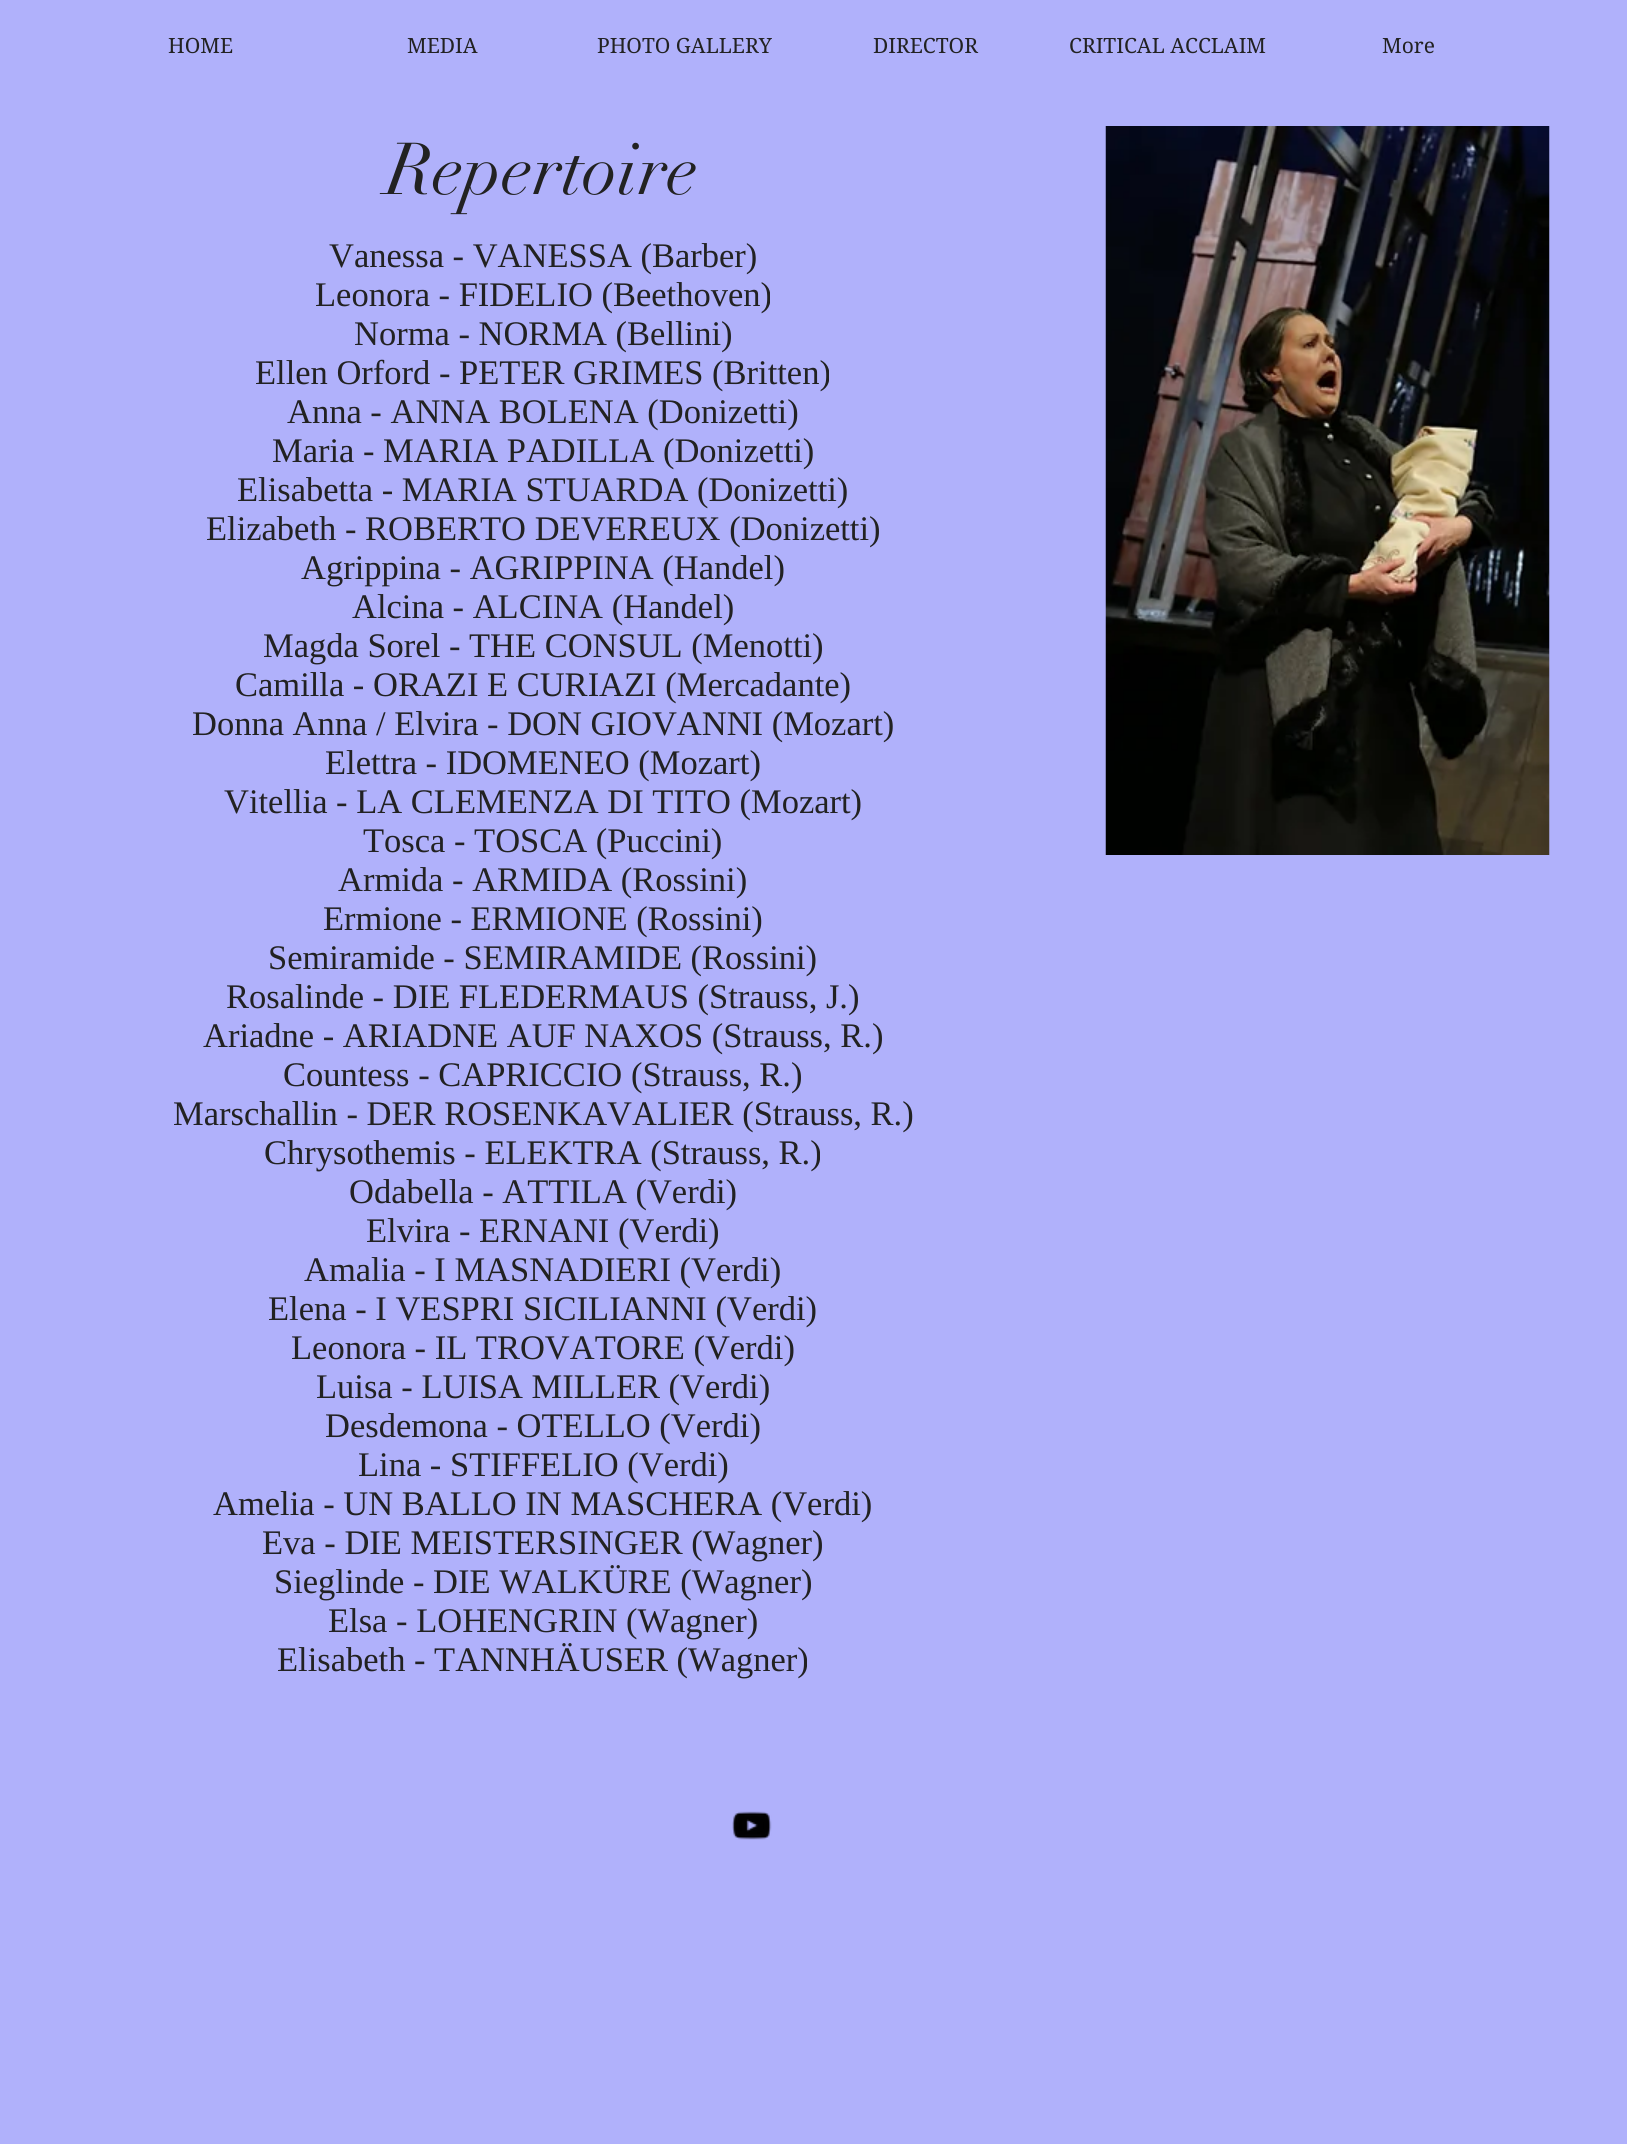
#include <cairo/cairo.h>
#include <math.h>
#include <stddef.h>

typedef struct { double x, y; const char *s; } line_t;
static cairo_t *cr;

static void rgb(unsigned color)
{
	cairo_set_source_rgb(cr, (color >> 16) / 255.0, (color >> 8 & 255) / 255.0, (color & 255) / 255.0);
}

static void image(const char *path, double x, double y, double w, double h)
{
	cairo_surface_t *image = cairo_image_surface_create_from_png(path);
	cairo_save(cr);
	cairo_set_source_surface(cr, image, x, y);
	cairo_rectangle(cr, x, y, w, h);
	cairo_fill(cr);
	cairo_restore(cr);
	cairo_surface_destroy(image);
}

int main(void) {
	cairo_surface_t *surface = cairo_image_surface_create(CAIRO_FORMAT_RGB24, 1627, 2144);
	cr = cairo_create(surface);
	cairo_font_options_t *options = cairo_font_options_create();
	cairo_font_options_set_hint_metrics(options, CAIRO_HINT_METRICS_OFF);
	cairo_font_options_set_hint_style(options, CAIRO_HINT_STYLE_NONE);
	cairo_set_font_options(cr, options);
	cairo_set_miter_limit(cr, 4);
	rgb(0xb0b1fb);
	cairo_paint(cr);
	image("img/1.png", 1105, 126, 445, 729);
	image("img/2.png", 732, 1811, 40, 29);
	cairo_select_font_face(cr, "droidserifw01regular", CAIRO_FONT_SLANT_NORMAL, CAIRO_FONT_WEIGHT_NORMAL);
	cairo_set_font_size(cr, 21);
	rgb(0x222222);
	{
		static const line_t items[] = {
			{168, 53, "HOME"},
			{407, 53, "MEDIA"},
			{597, 53, "PHOTO GALLERY"},
			{873, 53, "DIRECTOR"},
			{1069, 53, "CRITICAL ACCLAIM"},
			{1382, 53, "More"},
		};
		for (size_t i = 0; i < sizeof items / sizeof *items; i++) {
			cairo_move_to(cr, items[i].x, items[i].y);
			cairo_show_text(cr, items[i].s);
		}
	}
	cairo_select_font_face(cr, "didot", CAIRO_FONT_SLANT_NORMAL, CAIRO_FONT_WEIGHT_NORMAL);
	cairo_set_font_size(cr, 72);
	cairo_move_to(cr, 386, 194);
	cairo_show_text(cr, "Repertoire");
	cairo_select_font_face(cr, "Liberation Serif", CAIRO_FONT_SLANT_NORMAL, CAIRO_FONT_WEIGHT_NORMAL);
	cairo_set_font_size(cr, 34.5);
	{
		static const line_t items[] = {
			{329, 267, "Vanessa - VANESSA (Barber)"},
			{315, 306, "Leonora - FIDELIO (Beethoven)"},
			{354, 345, "Norma - NORMA (Bellini)"},
			{255, 384, "Ellen Orford - PETER GRIMES (Britten)"},
			{287, 423, "Anna - ANNA BOLENA (Donizetti)"},
			{272, 462, "Maria - MARIA PADILLA (Donizetti)"},
			{237, 501, "Elisabetta - MARIA STUARDA (Donizetti)"},
			{206, 540, "Elizabeth - ROBERTO DEVEREUX (Donizetti)"},
			{301, 579, "Agrippina - AGRIPPINA (Handel)"},
			{352, 618, "Alcina - ALCINA (Handel)"},
			{263, 657, "Magda Sorel - THE CONSUL (Menotti)"},
			{235, 696, "Camilla - ORAZI E CURIAZI (Mercadante)"},
			{192, 735, "Donna Anna / Elvira - DON GIOVANNI (Mozart)"},
			{325, 774, "Elettra - IDOMENEO (Mozart)"},
			{224, 813, "Vitellia - LA CLEMENZA DI TITO (Mozart)"},
			{363, 852, "Tosca - TOSCA (Puccini)"},
			{338, 891, "Armida - ARMIDA (Rossini)"},
			{323, 930, "Ermione - ERMIONE (Rossini)"},
			{268, 969, "Semiramide - SEMIRAMIDE (Rossini)"},
			{226, 1008, "Rosalinde - DIE FLEDERMAUS (Strauss, J.)"},
			{203, 1047, "Ariadne - ARIADNE AUF NAXOS (Strauss, R.)"},
			{283, 1086, "Countess - CAPRICCIO (Strauss, R.)"},
			{173, 1125, "Marschallin - DER ROSENKAVALIER (Strauss, R.)"},
			{264, 1164, "Chrysothemis - ELEKTRA (Strauss, R.)"},
			{349, 1203, "Odabella - ATTILA (Verdi)"},
			{366, 1242, "Elvira - ERNANI (Verdi)"},
			{304, 1281, "Amalia - I MASNADIERI (Verdi)"},
			{268, 1320, "Elena - I VESPRI SICILIANNI (Verdi)"},
			{291, 1359, "Leonora - IL TROVATORE (Verdi)"},
			{316, 1398, "Luisa - LUISA MILLER (Verdi)"},
			{325, 1437, "Desdemona - OTELLO (Verdi)"},
			{358, 1476, "Lina - STIFFELIO (Verdi)"},
			{213, 1515, "Amelia - UN BALLO IN MASCHERA (Verdi)"},
			{262, 1554, "Eva - DIE MEISTERSINGER (Wagner)"},
			{274, 1593, "Sieglinde - DIE WALKÜRE (Wagner)"},
			{328, 1632, "Elsa - LOHENGRIN (Wagner)"},
			{277, 1671, "Elisabeth - TANNHÄUSER (Wagner)"},
		};
		for (size_t i = 0; i < sizeof items / sizeof *items; i++) {
			cairo_move_to(cr, items[i].x, items[i].y);
			cairo_show_text(cr, items[i].s);
		}
	}
	cairo_surface_write_to_png(surface, "page.png");
	cairo_font_options_destroy(options);
	cairo_destroy(cr);
	cairo_surface_destroy(surface);
	return 0;
}
